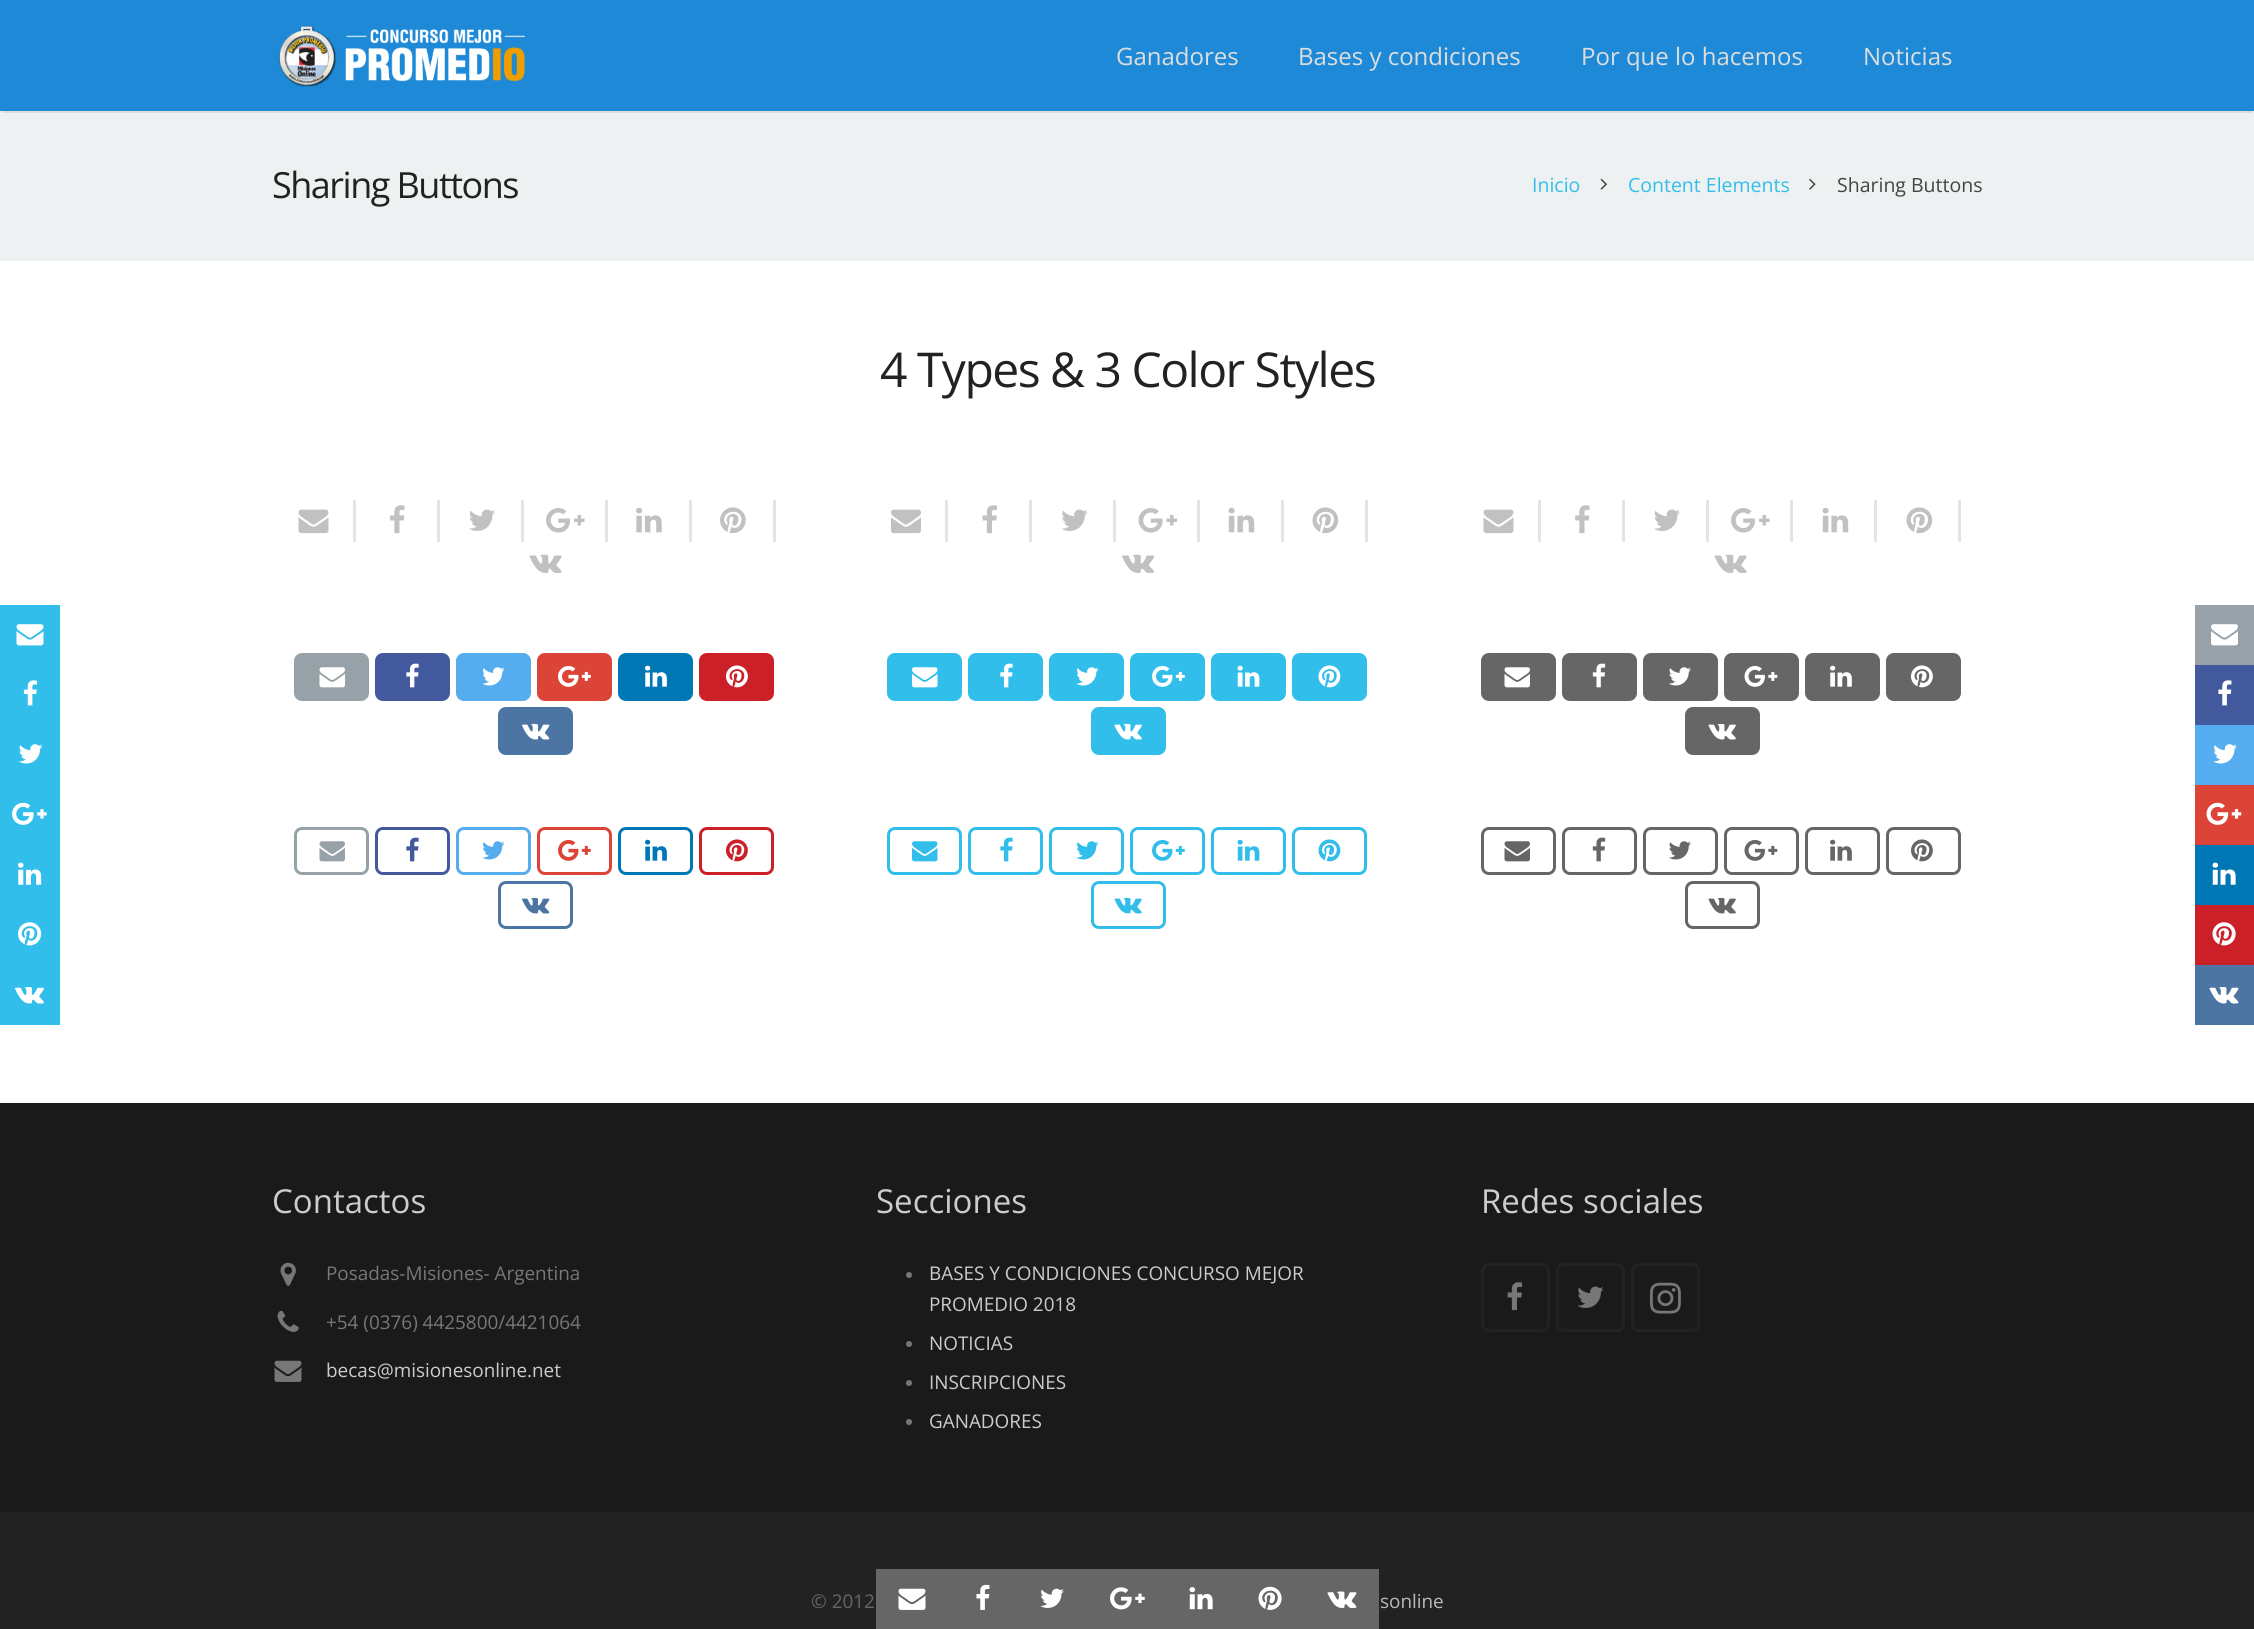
#include <cairo/cairo.h>
#include <math.h>
#include <stddef.h>

typedef struct { double x, y; const char *s; } line_t;
typedef struct { double x, y, w, h; unsigned color; } box_t;
static cairo_t *cr;

static void rgb(unsigned color)
{
	cairo_set_source_rgb(cr, (color >> 16) / 255.0, (color >> 8 & 255) / 255.0, (color & 255) / 255.0);
}

static void tracked(double x, double y, const char *s, double letter, double word)
{
	cairo_move_to(cr, x, y);
	while (*s) {
		char ch[5] = {0};
		int n = 0;
		do ch[n++] = *s++; while ((*s & 0xC0) == 0x80);
		cairo_show_text(cr, ch);
		cairo_rel_move_to(cr, letter + word * (*ch == ' '), 0);
	}
}

static void rrect(double x, double y, double w, double h, double r)
{
	cairo_new_sub_path(cr);
	cairo_arc(cr, x + w - r, y + h - r, r, 0, M_PI / 2);
	cairo_arc(cr, x + r, y + h - r, r, M_PI / 2, M_PI);
	cairo_arc(cr, x + r, y + r, r, M_PI, 1.5 * M_PI);
	cairo_arc(cr, x + w - r, y + r, r, 1.5 * M_PI, 2 * M_PI);
	cairo_close_path(cr);
}

static void image(const char *path, double x, double y, double w, double h)
{
	cairo_surface_t *image = cairo_image_surface_create_from_png(path);
	cairo_save(cr);
	cairo_set_source_surface(cr, image, x, y);
	cairo_rectangle(cr, x, y, w, h);
	cairo_fill(cr);
	cairo_restore(cr);
	cairo_surface_destroy(image);
}

int main(void) {
	cairo_surface_t *surface = cairo_image_surface_create(CAIRO_FORMAT_RGB24, 2254, 1629);
	cr = cairo_create(surface);
	cairo_font_options_t *options = cairo_font_options_create();
	cairo_font_options_set_hint_metrics(options, CAIRO_HINT_METRICS_OFF);
	cairo_font_options_set_hint_style(options, CAIRO_HINT_STYLE_NONE);
	cairo_set_font_options(cr, options);
	cairo_set_miter_limit(cr, 4);
	rgb(0xffffff);
	cairo_paint(cr);
	{
		static const box_t items[] = {
			{0, 111, 2254, 150, 0xedf1f2},
			{2, 111, 2251, 2, 0xdadedf},
			{0, 0, 2254, 111, 0x1e89d6},
		};
		for (size_t i = 0; i < sizeof items / sizeof *items; i++) {
			rgb(items[i].color);
			cairo_rectangle(cr, items[i].x, items[i].y, items[i].w, items[i].h);
			cairo_fill(cr);
		}
	}
	image("img/1.png", 278, 25, 248, 62);
	image("img/2.png", 1600, 178, 7, 12);
	image("img/3.png", 1809, 178, 7, 12);
	rgb(0xe1e5e8);
	cairo_rectangle(cr, 945, 500, 3, 42);
	cairo_fill(cr);
	image("img/4.png", 891, 509, 30, 25);
	cairo_rectangle(cr, 1029, 500, 3, 42);
	cairo_fill(cr);
	image("img/5.png", 982, 505, 15, 29);
	cairo_rectangle(cr, 1113, 500, 3, 42);
	cairo_fill(cr);
	image("img/6.png", 1061, 509, 27, 22);
	cairo_rectangle(cr, 1197, 500, 3, 42);
	cairo_fill(cr);
	image("img/7.png", 1138, 508, 40, 25);
	cairo_rectangle(cr, 1281, 500, 3, 42);
	cairo_fill(cr);
	image("img/8.png", 1228, 507, 27, 26);
	cairo_rectangle(cr, 1365, 500, 3, 42);
	cairo_fill(cr);
	image("img/9.png", 1312, 507, 27, 27);
	image("img/10.png", 1122, 554, 33, 19);
	rgb(0x32beeb);
	cairo_rectangle(cr, 0, 605, 60, 420);
	cairo_fill(cr);
	image("img/11.png", 16, 624, 28, 22);
	image("img/12.png", 23, 680, 14, 26);
	image("img/13.png", 18, 744, 25, 20);
	image("img/14.png", 12, 802, 35, 23);
	image("img/15.png", 18, 862, 24, 23);
	image("img/16.png", 18, 922, 24, 24);
	image("img/17.png", 15, 987, 29, 17);
	rrect(887, 653, 75, 48, 8);
	cairo_fill(cr);
	image("img/18.png", 912, 667, 26, 21);
	rrect(968, 653, 75, 48, 8);
	cairo_fill(cr);
	image("img/19.png", 1000, 663, 13, 25);
	rrect(1049, 653, 75, 48, 8);
	cairo_fill(cr);
	image("img/20.png", 1076, 667, 23, 19);
	rrect(1130, 653, 75, 48, 8);
	cairo_fill(cr);
	image("img/21.png", 1152, 666, 33, 21);
	rrect(1211, 653, 75, 48, 8);
	cairo_fill(cr);
	image("img/22.png", 1237, 665, 23, 22);
	rrect(1292, 653, 75, 48, 8);
	cairo_fill(cr);
	image("img/23.png", 1318, 665, 23, 23);
	rrect(1091, 707, 75, 48, 8);
	cairo_fill(cr);
	image("img/24.png", 1114, 723, 28, 17);
	rrect(888.5, 828.5, 72, 45, 6.5);
	cairo_set_line_width(cr, 3);
	cairo_stroke(cr);
	image("img/25.png", 912, 841, 26, 21);
	rrect(969.5, 828.5, 72, 45, 6.5);
	cairo_stroke(cr);
	image("img/26.png", 1000, 837, 13, 25);
	rrect(1050.5, 828.5, 72, 45, 6.5);
	cairo_stroke(cr);
	image("img/27.png", 1076, 841, 23, 19);
	rrect(1131.5, 828.5, 72, 45, 6.5);
	cairo_stroke(cr);
	image("img/28.png", 1152, 840, 33, 21);
	rrect(1212.5, 828.5, 72, 45, 6.5);
	cairo_stroke(cr);
	image("img/29.png", 1237, 839, 23, 22);
	rrect(1293.5, 828.5, 72, 45, 6.5);
	cairo_stroke(cr);
	image("img/30.png", 1318, 839, 23, 23);
	rrect(1092.5, 882.5, 72, 45, 6.5);
	cairo_stroke(cr);
	image("img/31.png", 1114, 897, 28, 17);
	rgb(0xe1e5e8);
	cairo_rectangle(cr, 353, 500, 3, 42);
	cairo_fill(cr);
	image("img/32.png", 298, 509, 31, 25);
	cairo_rectangle(cr, 437, 500, 3, 42);
	cairo_fill(cr);
	image("img/33.png", 390, 505, 15, 29);
	cairo_rectangle(cr, 521, 500, 3, 42);
	cairo_fill(cr);
	image("img/34.png", 469, 509, 26, 22);
	cairo_rectangle(cr, 605, 500, 3, 42);
	cairo_fill(cr);
	image("img/35.png", 546, 508, 39, 25);
	cairo_rectangle(cr, 689, 500, 3, 42);
	cairo_fill(cr);
	image("img/36.png", 636, 507, 26, 26);
	cairo_rectangle(cr, 773, 500, 3, 42);
	cairo_fill(cr);
	image("img/37.png", 720, 507, 26, 27);
	image("img/38.png", 529, 554, 33, 19);
	rgb(0x96a2a8);
	rrect(294, 653, 75, 48, 8);
	cairo_fill(cr);
	image("img/39.png", 319, 667, 26, 21);
	rgb(0x42599e);
	rrect(375, 653, 75, 48, 8);
	cairo_fill(cr);
	image("img/40.png", 406, 663, 13, 25);
	rgb(0x55acee);
	rrect(456, 653, 75, 48, 8);
	cairo_fill(cr);
	image("img/41.png", 482, 667, 23, 19);
	rgb(0xdb4437);
	rrect(537, 653, 75, 48, 8);
	cairo_fill(cr);
	image("img/42.png", 558, 666, 33, 21);
	rgb(0x0077b5);
	rrect(618, 653, 75, 48, 8);
	cairo_fill(cr);
	image("img/43.png", 645, 665, 22, 22);
	rgb(0xcb2027);
	rrect(699, 653, 75, 48, 8);
	cairo_fill(cr);
	image("img/44.png", 726, 665, 22, 23);
	rgb(0x4c75a3);
	rrect(498, 707, 75, 48, 8);
	cairo_fill(cr);
	image("img/45.png", 522, 723, 28, 17);
	rgb(0x96a2a8);
	cairo_rectangle(cr, 2195, 605, 59, 60);
	cairo_fill(cr);
	image("img/46.png", 2211, 624, 27, 22);
	rgb(0x42599e);
	cairo_rectangle(cr, 2195, 665, 59, 60);
	cairo_fill(cr);
	image("img/47.png", 2218, 680, 14, 26);
	rgb(0x55acee);
	cairo_rectangle(cr, 2195, 725, 59, 60);
	cairo_fill(cr);
	image("img/48.png", 2213, 744, 24, 20);
	rgb(0xdb4437);
	cairo_rectangle(cr, 2195, 785, 59, 60);
	cairo_fill(cr);
	image("img/49.png", 2206, 802, 36, 23);
	rgb(0x0077b5);
	cairo_rectangle(cr, 2195, 845, 59, 60);
	cairo_fill(cr);
	image("img/50.png", 2212, 862, 24, 23);
	rgb(0xcb2027);
	cairo_rectangle(cr, 2195, 905, 59, 60);
	cairo_fill(cr);
	image("img/51.png", 2212, 922, 24, 24);
	rgb(0x4c75a3);
	cairo_rectangle(cr, 2195, 965, 59, 60);
	cairo_fill(cr);
	image("img/52.png", 2209, 987, 30, 17);
	rrect(295.5, 828.5, 72, 45, 6.5);
	rgb(0x96a2a8);
	cairo_stroke(cr);
	image("img/53.png", 319, 841, 26, 21);
	rrect(376.5, 828.5, 72, 45, 6.5);
	rgb(0x42599e);
	cairo_stroke(cr);
	image("img/54.png", 406, 837, 13, 25);
	rrect(457.5, 828.5, 72, 45, 6.5);
	rgb(0x55acee);
	cairo_stroke(cr);
	image("img/55.png", 482, 841, 23, 19);
	rrect(538.5, 828.5, 72, 45, 6.5);
	rgb(0xdb4437);
	cairo_stroke(cr);
	image("img/56.png", 558, 840, 33, 21);
	rrect(619.5, 828.5, 72, 45, 6.5);
	rgb(0x0077b5);
	cairo_stroke(cr);
	image("img/57.png", 645, 839, 22, 22);
	rrect(700.5, 828.5, 72, 45, 6.5);
	rgb(0xcb2027);
	cairo_stroke(cr);
	image("img/58.png", 726, 839, 22, 23);
	rrect(499.5, 882.5, 72, 45, 6.5);
	rgb(0x4c75a3);
	cairo_stroke(cr);
	image("img/59.png", 522, 897, 28, 17);
	rgb(0xe1e5e8);
	cairo_rectangle(cr, 1538, 500, 3, 42);
	cairo_fill(cr);
	image("img/32.png", 1483, 509, 31, 25);
	cairo_rectangle(cr, 1622, 500, 3, 42);
	cairo_fill(cr);
	image("img/33.png", 1575, 505, 15, 29);
	cairo_rectangle(cr, 1706, 500, 3, 42);
	cairo_fill(cr);
	image("img/34.png", 1654, 509, 26, 22);
	cairo_rectangle(cr, 1790, 500, 3, 42);
	cairo_fill(cr);
	image("img/35.png", 1731, 508, 39, 25);
	cairo_rectangle(cr, 1874, 500, 3, 42);
	cairo_fill(cr);
	image("img/8.png", 1822, 507, 27, 26);
	cairo_rectangle(cr, 1958, 500, 3, 42);
	cairo_fill(cr);
	image("img/9.png", 1906, 507, 27, 27);
	image("img/38.png", 1714, 554, 33, 19);
	rgb(0x666666);
	rrect(1481, 653, 75, 48, 8);
	cairo_fill(cr);
	image("img/60.png", 1504, 667, 26, 21);
	rrect(1562, 653, 75, 48, 8);
	cairo_fill(cr);
	image("img/61.png", 1592, 663, 14, 25);
	rrect(1643, 653, 75, 48, 8);
	cairo_fill(cr);
	image("img/62.png", 1668, 667, 23, 19);
	rrect(1724, 653, 75, 48, 8);
	cairo_fill(cr);
	image("img/63.png", 1744, 666, 34, 21);
	rrect(1805, 653, 75, 48, 8);
	cairo_fill(cr);
	image("img/64.png", 1830, 665, 22, 22);
	rrect(1886, 653, 75, 48, 8);
	cairo_fill(cr);
	image("img/65.png", 1911, 665, 22, 23);
	rrect(1685, 707, 75, 48, 8);
	cairo_fill(cr);
	image("img/66.png", 1708, 723, 28, 17);
	rrect(1482.5, 828.5, 72, 45, 6.5);
	cairo_stroke(cr);
	image("img/67.png", 1504, 841, 26, 21);
	rrect(1563.5, 828.5, 72, 45, 6.5);
	cairo_stroke(cr);
	image("img/68.png", 1592, 837, 14, 25);
	rrect(1644.5, 828.5, 72, 45, 6.5);
	cairo_stroke(cr);
	image("img/69.png", 1668, 841, 23, 19);
	rrect(1725.5, 828.5, 72, 45, 6.5);
	cairo_stroke(cr);
	image("img/70.png", 1744, 840, 34, 21);
	rrect(1806.5, 828.5, 72, 45, 6.5);
	cairo_stroke(cr);
	image("img/71.png", 1830, 839, 22, 22);
	rrect(1887.5, 828.5, 72, 45, 6.5);
	cairo_stroke(cr);
	image("img/72.png", 1911, 839, 22, 23);
	rrect(1686.5, 882.5, 72, 45, 6.5);
	cairo_stroke(cr);
	image("img/73.png", 1708, 897, 28, 17);
	rgb(0x222222);
	cairo_rectangle(cr, 0, 1512, 2254, 117);
	cairo_fill(cr);
	rgb(0x666666);
	cairo_rectangle(cr, 876, 1569, 503, 60);
	cairo_fill(cr);
	image("img/74.png", 898, 1588, 28, 22);
	image("img/75.png", 976, 1584, 14, 26);
	image("img/76.png", 1040, 1588, 24, 20);
	image("img/77.png", 1110, 1587, 35, 23);
	image("img/78.png", 1189, 1587, 24, 23);
	image("img/79.png", 1258, 1586, 24, 24);
	image("img/80.png", 1327, 1591, 30, 17);
	rgb(0x1a1a1a);
	cairo_rectangle(cr, 0, 1103, 2254, 409);
	cairo_fill(cr);
	image("img/81.png", 280, 1262, 16, 24);
	image("img/82.png", 277, 1310, 22, 22);
	image("img/83.png", 274, 1360, 28, 22);
	rgb(0x777777);
	cairo_arc(cr, 909, 1275, 3, 0, 2 * M_PI);
	cairo_fill(cr);
	cairo_arc(cr, 909, 1344, 3, 0, 2 * M_PI);
	cairo_fill(cr);
	cairo_arc(cr, 909, 1383, 3, 0, 2 * M_PI);
	cairo_fill(cr);
	cairo_arc(cr, 909, 1422, 3, 0, 2 * M_PI);
	cairo_fill(cr);
	rrect(1482.5, 1264.5, 66, 66, 6.5);
	rgb(0x222222);
	cairo_stroke(cr);
	image("img/84.png", 1507, 1282, 16, 29);
	rrect(1557.5, 1264.5, 66, 66, 6.5);
	cairo_stroke(cr);
	image("img/85.png", 1577, 1286, 27, 22);
	rrect(1632.5, 1264.5, 66, 66, 6.5);
	cairo_stroke(cr);
	image("img/86.png", 1650, 1282, 31, 32);
	cairo_select_font_face(cr, "Open Sans", CAIRO_FONT_SLANT_NORMAL, CAIRO_FONT_WEIGHT_NORMAL);
	cairo_set_font_size(cr, 24);
	rgb(0xdddddd);
	{
		static const line_t items[] = {
			{1116, 65, "Ganadores"},
			{1298, 65, "Bases y condiciones"},
			{1581, 65, "Por que lo hacemos"},
			{1863, 65, "Noticias"},
		};
		for (size_t i = 0; i < sizeof items / sizeof *items; i++) {
			cairo_move_to(cr, items[i].x, items[i].y);
			cairo_show_text(cr, items[i].s);
		}
	}
	cairo_set_font_size(cr, 36);
	rgb(0x222222);
	tracked(272, 198, "Sharing Buttons", -1.5, 0);
	cairo_set_font_size(cr, 19.5);
	rgb(0x32beeb);
	cairo_move_to(cr, 1532, 192);
	cairo_show_text(cr, "Inicio");
	cairo_move_to(cr, 1628, 192);
	cairo_show_text(cr, "Content Elements");
	rgb(0x444444);
	cairo_move_to(cr, 1837, 192);
	cairo_show_text(cr, "Sharing Buttons");
	cairo_set_font_size(cr, 48);
	rgb(0x222222);
	tracked(880, 387, "4 Types & 3 Color Styles", -1.5, 0);
	cairo_set_font_size(cr, 33);
	rgb(0xcccccc);
	cairo_move_to(cr, 272, 1213);
	cairo_show_text(cr, "Contactos");
	cairo_set_font_size(cr, 18.9);
	rgb(0x777777);
	cairo_move_to(cr, 326, 1280);
	cairo_show_text(cr, "Posadas-Misiones- Argentina");
	cairo_move_to(cr, 326, 1329);
	cairo_show_text(cr, "+54 (0376) 4425800/4421064");
	rgb(0xcccccc);
	cairo_move_to(cr, 326, 1377);
	cairo_show_text(cr, "becas@misionesonline.net");
	cairo_set_font_size(cr, 33);
	cairo_move_to(cr, 876, 1213);
	cairo_show_text(cr, "Secciones");
	cairo_set_font_size(cr, 18.9);
	{
		static const line_t items[] = {
			{929, 1280, "BASES Y CONDICIONES CONCURSO MEJOR"},
			{929, 1311, "PROMEDIO 2018"},
			{929, 1350, "NOTICIAS"},
			{929, 1389, "INSCRIPCIONES"},
			{929, 1428, "GANADORES"},
		};
		for (size_t i = 0; i < sizeof items / sizeof *items; i++) {
			cairo_move_to(cr, items[i].x, items[i].y);
			cairo_show_text(cr, items[i].s);
		}
	}
	cairo_set_font_size(cr, 33);
	cairo_move_to(cr, 1481, 1213);
	cairo_show_text(cr, "Redes sociales");
	cairo_set_font_size(cr, 18.9);
	rgb(0x666666);
	cairo_move_to(cr, 811, 1608);
	cairo_show_text(cr, "© 2012");
	rgb(0xbbbbbb);
	cairo_move_to(cr, 1380, 1608);
	cairo_show_text(cr, "sonline");
	cairo_surface_write_to_png(surface, "page.png");
	cairo_font_options_destroy(options);
	cairo_destroy(cr);
	cairo_surface_destroy(surface);
	return 0;
}
